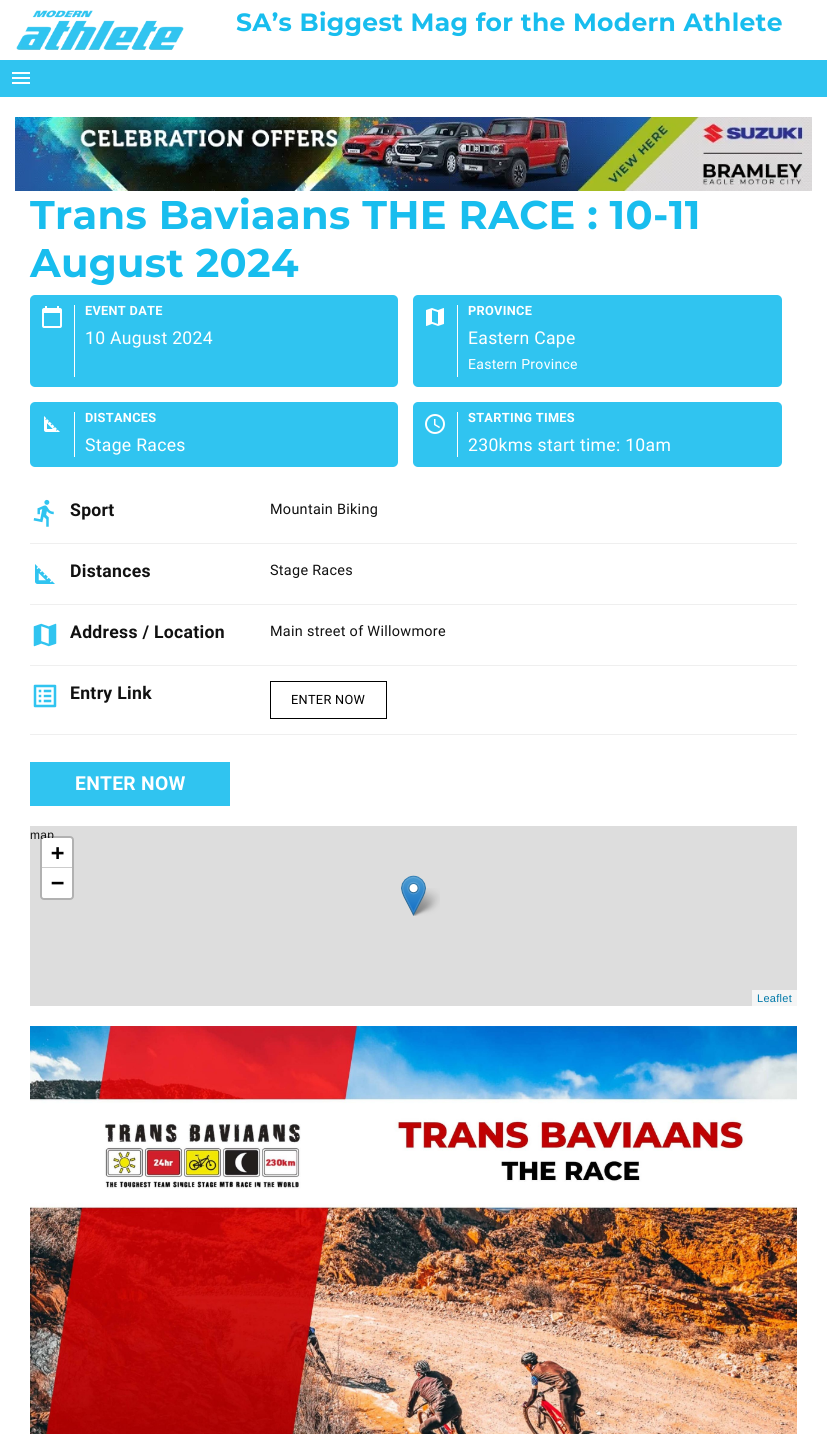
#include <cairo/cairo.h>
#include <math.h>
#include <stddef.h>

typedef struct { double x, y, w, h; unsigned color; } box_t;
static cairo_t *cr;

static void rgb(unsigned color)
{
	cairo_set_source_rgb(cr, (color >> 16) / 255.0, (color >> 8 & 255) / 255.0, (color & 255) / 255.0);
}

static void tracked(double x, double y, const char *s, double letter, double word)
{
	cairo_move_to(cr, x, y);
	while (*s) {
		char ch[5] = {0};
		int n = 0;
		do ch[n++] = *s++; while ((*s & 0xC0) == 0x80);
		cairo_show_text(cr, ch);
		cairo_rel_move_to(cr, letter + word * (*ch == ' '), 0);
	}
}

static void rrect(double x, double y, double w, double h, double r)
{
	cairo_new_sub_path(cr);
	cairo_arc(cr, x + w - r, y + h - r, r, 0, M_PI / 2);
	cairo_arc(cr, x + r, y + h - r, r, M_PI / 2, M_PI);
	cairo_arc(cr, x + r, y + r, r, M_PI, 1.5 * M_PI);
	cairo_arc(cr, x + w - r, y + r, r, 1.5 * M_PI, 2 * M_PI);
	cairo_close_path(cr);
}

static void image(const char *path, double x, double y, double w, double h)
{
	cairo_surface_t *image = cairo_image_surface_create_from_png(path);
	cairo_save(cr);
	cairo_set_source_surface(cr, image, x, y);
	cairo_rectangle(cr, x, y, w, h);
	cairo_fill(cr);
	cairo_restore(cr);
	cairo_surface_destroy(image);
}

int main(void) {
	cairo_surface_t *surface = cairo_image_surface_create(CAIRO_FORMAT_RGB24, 827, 1434);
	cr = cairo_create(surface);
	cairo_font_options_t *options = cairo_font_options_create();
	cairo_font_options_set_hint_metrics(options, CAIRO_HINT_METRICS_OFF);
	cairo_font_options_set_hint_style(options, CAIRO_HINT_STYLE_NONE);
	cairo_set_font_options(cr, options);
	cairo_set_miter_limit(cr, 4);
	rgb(0xffffff);
	cairo_paint(cr);
	image("img/1.png", 16, 10, 168, 40);
	rgb(0x30c4f0);
	cairo_rectangle(cr, 0, 60, 827, 37);
	cairo_fill(cr);
	image("img/2.png", 12, 72, 18, 12);
	image("img/3.png", 15, 117, 797, 74);
	rrect(30, 295, 368, 92, 5);
	cairo_fill(cr);
	rgb(0xffffff);
	cairo_rectangle(cr, 74, 305, 1, 72);
	cairo_fill(cr);
	image("img/4.png", 42, 306, 20, 22);
	rgb(0x30c4f0);
	rrect(413, 295, 369, 92, 5);
	cairo_fill(cr);
	rgb(0xffffff);
	cairo_rectangle(cr, 457, 305, 1, 72);
	cairo_fill(cr);
	image("img/5.png", 426, 308, 18, 18);
	rgb(0x30c4f0);
	rrect(30, 402, 368, 65, 5);
	cairo_fill(cr);
	rgb(0xffffff);
	cairo_rectangle(cr, 74, 412, 1, 45);
	cairo_fill(cr);
	image("img/6.png", 44, 416, 16, 16);
	rgb(0x30c4f0);
	rrect(413, 402, 369, 65, 5);
	cairo_fill(cr);
	rgb(0xffffff);
	cairo_rectangle(cr, 457, 412, 1, 45);
	cairo_fill(cr);
	image("img/7.png", 425, 414, 20, 20);
	rgb(0xefefef);
	cairo_rectangle(cr, 30, 543, 767, 1);
	cairo_fill(cr);
	image("img/8.png", 33, 499, 21, 28);
	cairo_rectangle(cr, 30, 604, 767, 1);
	cairo_fill(cr);
	image("img/9.png", 35, 564, 20, 20);
	cairo_rectangle(cr, 30, 665, 767, 1);
	cairo_fill(cr);
	image("img/10.png", 33, 623, 24, 24);
	cairo_rectangle(cr, 30, 734, 767, 1);
	cairo_fill(cr);
	image("img/11.png", 33, 684, 24, 24);
	cairo_rectangle(cr, 270.5, 681.5, 116, 37);
	rgb(0x000000);
	cairo_set_line_width(cr, 1);
	cairo_stroke(cr);
	{
		static const box_t items[] = {
			{30, 762, 200, 44, 0x30c4f0},
			{30, 826, 767, 180, 0xdddddd},
			{752, 990, 45, 16, 0xf5f5f5},
		};
		for (size_t i = 0; i < sizeof items / sizeof *items; i++) {
			rgb(items[i].color);
			cairo_rectangle(cr, items[i].x, items[i].y, items[i].w, items[i].h);
			cairo_fill(cr);
		}
	}
	image("img/13.png", 411, 888, 29, 28);
	image("img/12.png", 401, 875, 25, 41);
	image("img/14.png", 30, 1026, 767, 408);
	cairo_select_font_face(cr, "Montserrat", CAIRO_FONT_SLANT_NORMAL, CAIRO_FONT_WEIGHT_BOLD);
	cairo_set_font_size(cr, 25);
	rgb(0x18bdee);
	tracked(236, 31, "SA’s Biggest Mag for the Modern Athlete", 0.3, 0);
	cairo_set_font_size(cr, 40);
	tracked(30, 229, "Trans Baviaans THE RACE : 10-11", 0.3, 0);
	tracked(30, 277, "August 2024", 0.3, 0);
	cairo_select_font_face(cr, "Roboto", CAIRO_FONT_SLANT_NORMAL, CAIRO_FONT_WEIGHT_BOLD);
	cairo_set_font_size(cr, 12.75);
	rgb(0xffffff);
	tracked(85, 315, "EVENT DATE", 0.3, 0);
	cairo_select_font_face(cr, "Roboto", CAIRO_FONT_SLANT_NORMAL, CAIRO_FONT_WEIGHT_NORMAL);
	cairo_set_font_size(cr, 17.6);
	tracked(85, 344, "10 August 2024", 0.3, 0);
	cairo_select_font_face(cr, "Roboto", CAIRO_FONT_SLANT_NORMAL, CAIRO_FONT_WEIGHT_BOLD);
	cairo_set_font_size(cr, 12.75);
	tracked(468, 315, "PROVINCE", 0.3, 0);
	cairo_select_font_face(cr, "Roboto", CAIRO_FONT_SLANT_NORMAL, CAIRO_FONT_WEIGHT_NORMAL);
	cairo_set_font_size(cr, 17.6);
	tracked(468, 344, "Eastern Cape", 0.3, 0);
	cairo_set_font_size(cr, 14);
	tracked(468, 369, "Eastern Province", 0.3, 0);
	cairo_select_font_face(cr, "Roboto", CAIRO_FONT_SLANT_NORMAL, CAIRO_FONT_WEIGHT_BOLD);
	cairo_set_font_size(cr, 12.75);
	tracked(85, 422, "DISTANCES", 0.3, 0);
	cairo_select_font_face(cr, "Roboto", CAIRO_FONT_SLANT_NORMAL, CAIRO_FONT_WEIGHT_NORMAL);
	cairo_set_font_size(cr, 17.6);
	tracked(85, 451, "Stage Races", 0.3, 0);
	cairo_select_font_face(cr, "Roboto", CAIRO_FONT_SLANT_NORMAL, CAIRO_FONT_WEIGHT_BOLD);
	cairo_set_font_size(cr, 12.75);
	tracked(468, 422, "STARTING TIMES", 0.3, 0);
	cairo_select_font_face(cr, "Roboto", CAIRO_FONT_SLANT_NORMAL, CAIRO_FONT_WEIGHT_NORMAL);
	cairo_set_font_size(cr, 17.6);
	tracked(468, 451, "230kms start time: 10am", 0.3, 0);
	cairo_select_font_face(cr, "Roboto", CAIRO_FONT_SLANT_NORMAL, CAIRO_FONT_WEIGHT_BOLD);
	rgb(0x111111);
	tracked(70, 516, "Sport", 0.3, 0);
	cairo_select_font_face(cr, "Roboto", CAIRO_FONT_SLANT_NORMAL, CAIRO_FONT_WEIGHT_NORMAL);
	cairo_set_font_size(cr, 14.4);
	tracked(270, 514, "Mountain Biking", 0.3, 0);
	cairo_select_font_face(cr, "Roboto", CAIRO_FONT_SLANT_NORMAL, CAIRO_FONT_WEIGHT_BOLD);
	cairo_set_font_size(cr, 17.6);
	tracked(70, 577, "Distances", 0.3, 0);
	cairo_select_font_face(cr, "Roboto", CAIRO_FONT_SLANT_NORMAL, CAIRO_FONT_WEIGHT_NORMAL);
	cairo_set_font_size(cr, 14.4);
	tracked(270, 575, "Stage Races", 0.3, 0);
	cairo_select_font_face(cr, "Roboto", CAIRO_FONT_SLANT_NORMAL, CAIRO_FONT_WEIGHT_BOLD);
	cairo_set_font_size(cr, 17.6);
	tracked(70, 638, "Address / Location", 0.3, 0);
	cairo_select_font_face(cr, "Roboto", CAIRO_FONT_SLANT_NORMAL, CAIRO_FONT_WEIGHT_NORMAL);
	cairo_set_font_size(cr, 14.4);
	tracked(270, 636, "Main street of Willowmore", 0.3, 0);
	cairo_select_font_face(cr, "Roboto", CAIRO_FONT_SLANT_NORMAL, CAIRO_FONT_WEIGHT_BOLD);
	cairo_set_font_size(cr, 17.6);
	tracked(70, 699, "Entry Link", 0.3, 0);
	cairo_select_font_face(cr, "Roboto", CAIRO_FONT_SLANT_NORMAL, CAIRO_FONT_WEIGHT_NORMAL);
	cairo_set_font_size(cr, 12.75);
	rgb(0x000000);
	tracked(291, 704, "ENTER NOW", 0.3, 0);
	cairo_select_font_face(cr, "Roboto", CAIRO_FONT_SLANT_NORMAL, CAIRO_FONT_WEIGHT_BOLD);
	cairo_set_font_size(cr, 19.25);
	rgb(0xffffff);
	tracked(75, 790, "ENTER NOW", 0.3, 0);
	cairo_select_font_face(cr, "Liberation Sans", CAIRO_FONT_SLANT_NORMAL, CAIRO_FONT_WEIGHT_NORMAL);
	cairo_set_font_size(cr, 12);
	rgb(0x111111);
	tracked(30, 839, "map", 0.3, 0);
	rrect(41, 837, 32, 62, 3);
	cairo_set_source_rgba(cr, 0, 0, 0, 0.2);
	cairo_set_line_width(cr, 2);
	cairo_stroke(cr);
	rgb(0xffffff);
	cairo_new_path(cr);
	cairo_move_to(cr, 44, 838);
	cairo_line_to(cr, 70, 838);
	cairo_curve_to(cr, 71, 838, 72, 839, 72, 840);
	cairo_line_to(cr, 72, 868);
	cairo_line_to(cr, 42, 868);
	cairo_line_to(cr, 42, 840);
	cairo_curve_to(cr, 42, 839, 43, 838, 44, 838);
	cairo_close_path(cr);
	cairo_fill(cr);
	rgb(0xcccccc);
	cairo_rectangle(cr, 42, 867, 30, 1);
	cairo_fill(cr);
	cairo_select_font_face(cr, "DejaVu Sans Mono", CAIRO_FONT_SLANT_NORMAL, CAIRO_FONT_WEIGHT_BOLD);
	cairo_set_font_size(cr, 22);
	rgb(0x000000);
	tracked(51, 860, "+", 0.3, 0);
	rgb(0xffffff);
	cairo_new_path(cr);
	cairo_move_to(cr, 42, 868);
	cairo_line_to(cr, 72, 868);
	cairo_line_to(cr, 72, 896);
	cairo_curve_to(cr, 72, 897, 71, 898, 70, 898);
	cairo_line_to(cr, 44, 898);
	cairo_curve_to(cr, 43, 898, 42, 897, 42, 896);
	cairo_close_path(cr);
	cairo_fill(cr);
	rgb(0x000000);
	tracked(51, 890, "−", 0.3, 0);
	cairo_select_font_face(cr, "Liberation Sans", CAIRO_FONT_SLANT_NORMAL, CAIRO_FONT_WEIGHT_NORMAL);
	cairo_set_font_size(cr, 11);
	rgb(0x0078a8);
	tracked(757, 1002, "Leaflet", 0.3, 0);
	cairo_surface_write_to_png(surface, "page.png");
	cairo_font_options_destroy(options);
	cairo_destroy(cr);
	cairo_surface_destroy(surface);
	return 0;
}
